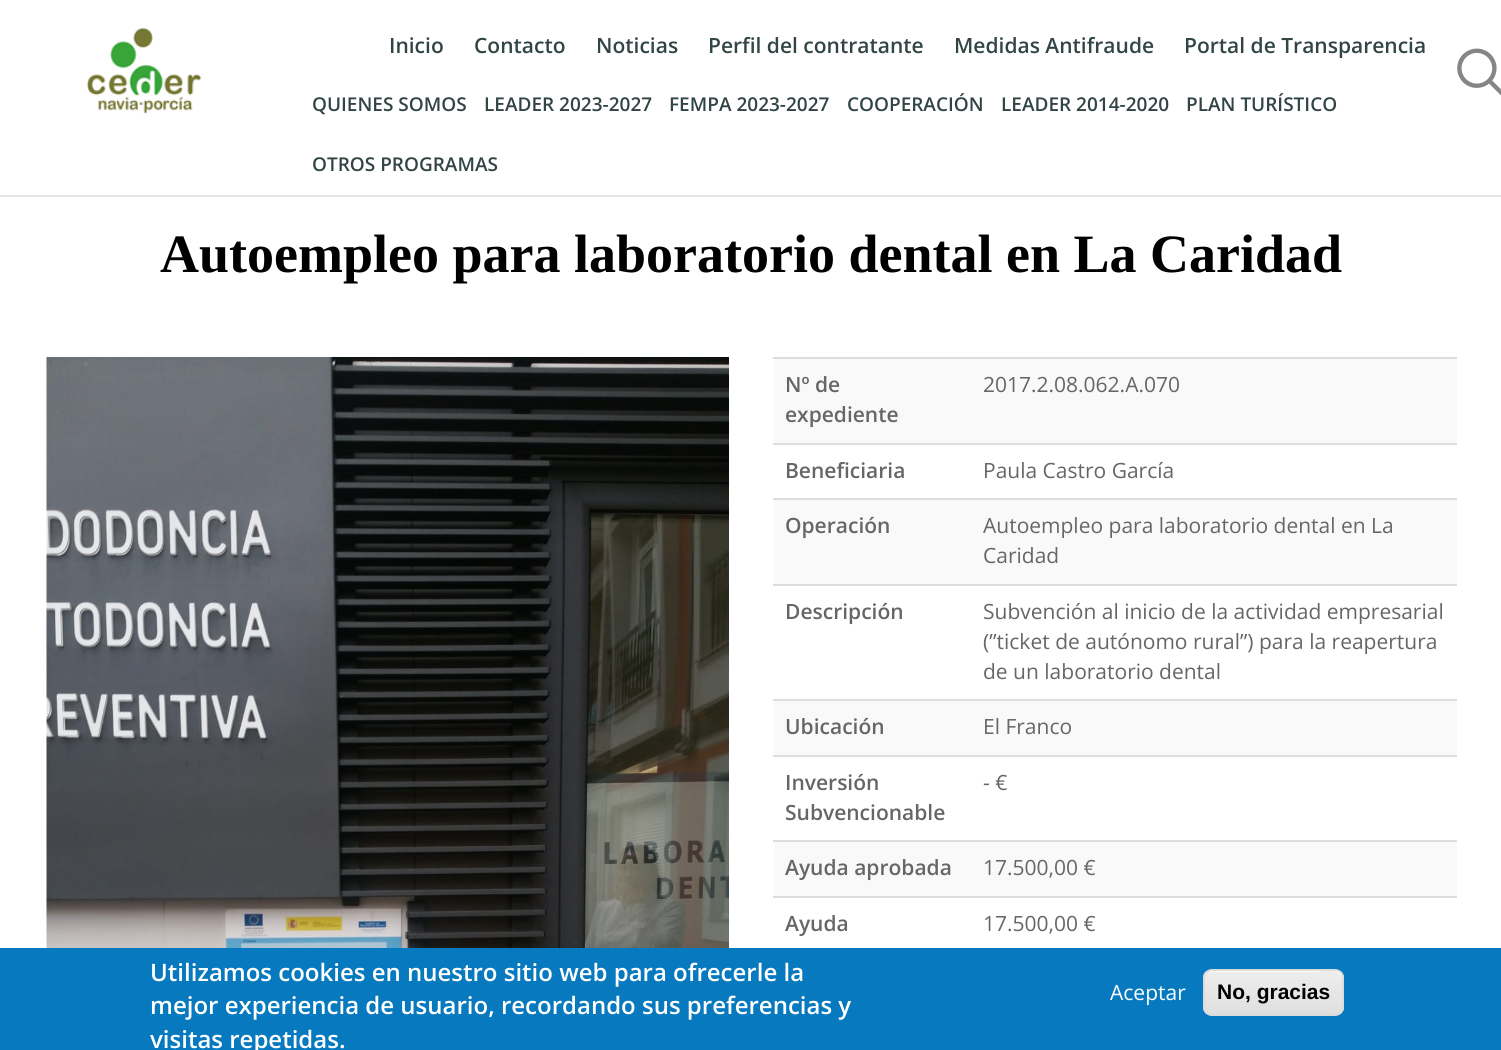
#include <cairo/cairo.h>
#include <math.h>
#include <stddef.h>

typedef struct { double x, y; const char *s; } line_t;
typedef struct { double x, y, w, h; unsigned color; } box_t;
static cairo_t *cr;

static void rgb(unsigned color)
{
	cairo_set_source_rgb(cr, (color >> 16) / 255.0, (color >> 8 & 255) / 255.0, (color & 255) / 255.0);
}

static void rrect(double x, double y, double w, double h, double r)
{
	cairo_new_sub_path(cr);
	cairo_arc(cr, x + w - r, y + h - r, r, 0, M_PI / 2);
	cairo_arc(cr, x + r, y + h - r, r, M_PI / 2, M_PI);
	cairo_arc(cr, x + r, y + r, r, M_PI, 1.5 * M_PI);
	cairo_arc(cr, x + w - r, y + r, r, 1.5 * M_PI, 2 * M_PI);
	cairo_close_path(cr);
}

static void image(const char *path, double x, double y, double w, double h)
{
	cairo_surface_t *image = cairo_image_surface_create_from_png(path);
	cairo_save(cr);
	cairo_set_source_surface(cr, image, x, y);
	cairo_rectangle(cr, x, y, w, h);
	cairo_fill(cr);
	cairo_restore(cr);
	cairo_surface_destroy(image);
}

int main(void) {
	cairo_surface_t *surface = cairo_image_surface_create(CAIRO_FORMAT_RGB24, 1501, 1050);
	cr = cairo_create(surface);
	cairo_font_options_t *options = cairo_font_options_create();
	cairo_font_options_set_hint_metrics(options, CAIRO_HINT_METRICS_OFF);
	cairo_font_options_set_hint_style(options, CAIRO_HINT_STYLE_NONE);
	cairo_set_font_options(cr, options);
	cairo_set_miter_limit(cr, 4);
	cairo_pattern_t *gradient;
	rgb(0xffffff);
	cairo_paint(cr);
	rgb(0xe4e4e4);
	cairo_rectangle(cr, 0, 195, 1501, 2);
	cairo_fill(cr);
	image("img/1.png", 86, 27, 116, 87);
	image("img/2.png", 1457, 48, 44, 48);
	image("img/3.png", 46, 357, 683, 591);
	{
		static const box_t items[] = {
			{774, 359, 683, 84, 0xf9f9f9},
			{773, 357, 684, 2, 0xdddddd},
			{773, 443, 684, 2, 0xdddddd},
			{774, 500, 683, 84, 0xf9f9f9},
			{773, 498, 684, 2, 0xdddddd},
			{773, 584, 684, 2, 0xdddddd},
			{774, 701, 683, 54, 0xf9f9f9},
			{773, 699, 684, 2, 0xdddddd},
			{773, 755, 684, 2, 0xdddddd},
			{774, 842, 683, 54, 0xf9f9f9},
			{773, 840, 684, 2, 0xdddddd},
			{773, 896, 684, 2, 0xdddddd},
			{0, 948, 1501, 102, 0x0779bf},
		};
		for (size_t i = 0; i < sizeof items / sizeof *items; i++) {
			rgb(items[i].color);
			cairo_rectangle(cr, items[i].x, items[i].y, items[i].w, items[i].h);
			cairo_fill(cr);
		}
	}
	cairo_save(cr);
	rrect(1203, 969, 141, 47, 9);
	cairo_clip(cr);
	gradient = cairo_pattern_create_linear(1274, 971, 1274, 1014);
	cairo_pattern_add_color_stop_rgba(gradient, 0.05, 0.929, 0.929, 0.929, 1);
	cairo_pattern_add_color_stop_rgba(gradient, 1, 0.875, 0.875, 0.875, 1);
	cairo_set_source(cr, gradient);
	cairo_pattern_destroy(gradient);
	cairo_rectangle(cr, 1203, 971, 141, 43);
	cairo_fill(cr);
	cairo_restore(cr);
	rgb(0xffffff);
	cairo_new_path(cr);
	cairo_move_to(cr, 1212, 972);
	cairo_line_to(cr, 1314, 972);
	cairo_curve_to(cr, 1319, 972, 1340, 967, 1342, 978);
	cairo_line_to(cr, 1342, 1010);
	cairo_curve_to(cr, 1342, 1009, 1343, 1008, 1343, 1006);
	cairo_line_to(cr, 1343, 979);
	cairo_curve_to(cr, 1343, 975, 1339, 971, 1335, 971);
	cairo_line_to(cr, 1213, 971);
	cairo_curve_to(cr, 1211, 971, 1208, 972, 1207, 974);
	cairo_curve_to(cr, 1208, 973, 1210, 972, 1212, 972);
	cairo_close_path(cr);
	cairo_fill(cr);
	rrect(1204, 970, 139, 45, 8);
	rgb(0xdcdcdc);
	cairo_stroke(cr);
	cairo_select_font_face(cr, "Open Sans SemiBold", CAIRO_FONT_SLANT_NORMAL, CAIRO_FONT_WEIGHT_NORMAL);
	cairo_set_font_size(cr, 21);
	rgb(0x324545);
	{
		static const line_t items[] = {
			{389, 53, "Inicio"},
			{474, 53, "Contacto"},
			{596, 53, "Noticias"},
			{708, 53, "Perfil del contratante"},
			{954, 53, "Medidas Antifraude"},
			{1184, 53, "Portal de Transparencia"},
		};
		for (size_t i = 0; i < sizeof items / sizeof *items; i++) {
			cairo_move_to(cr, items[i].x, items[i].y);
			cairo_show_text(cr, items[i].s);
		}
	}
	cairo_set_font_size(cr, 19);
	{
		static const line_t items[] = {
			{312, 111, "QUIENES SOMOS"},
			{484, 111, "LEADER 2023-2027"},
			{669, 111, "FEMPA 2023-2027"},
			{847, 111, "COOPERACIÓN"},
			{1001, 111, "LEADER 2014-2020"},
			{1186, 111, "PLAN TURÍSTICO"},
			{312, 171, "OTROS PROGRAMAS"},
		};
		for (size_t i = 0; i < sizeof items / sizeof *items; i++) {
			cairo_move_to(cr, items[i].x, items[i].y);
			cairo_show_text(cr, items[i].s);
		}
	}
	cairo_select_font_face(cr, "Liberation Serif", CAIRO_FONT_SLANT_NORMAL, CAIRO_FONT_WEIGHT_BOLD);
	cairo_set_font_size(cr, 54);
	rgb(0x000000);
	cairo_move_to(cr, 160, 272);
	cairo_show_text(cr, "Autoempleo para laboratorio dental en La Caridad");
	cairo_select_font_face(cr, "Open Sans SemiBold", CAIRO_FONT_SLANT_NORMAL, CAIRO_FONT_WEIGHT_NORMAL);
	cairo_set_font_size(cr, 21);
	rgb(0x666666);
	cairo_move_to(cr, 785, 392);
	cairo_show_text(cr, "Nº de");
	cairo_move_to(cr, 785, 422);
	cairo_show_text(cr, "expediente");
	cairo_select_font_face(cr, "Open Sans", CAIRO_FONT_SLANT_NORMAL, CAIRO_FONT_WEIGHT_NORMAL);
	cairo_move_to(cr, 983, 392);
	cairo_show_text(cr, "2017.2.08.062.A.070");
	cairo_select_font_face(cr, "Open Sans SemiBold", CAIRO_FONT_SLANT_NORMAL, CAIRO_FONT_WEIGHT_NORMAL);
	cairo_move_to(cr, 785, 478);
	cairo_show_text(cr, "Beneficiaria");
	cairo_select_font_face(cr, "Open Sans", CAIRO_FONT_SLANT_NORMAL, CAIRO_FONT_WEIGHT_NORMAL);
	cairo_move_to(cr, 983, 478);
	cairo_show_text(cr, "Paula Castro García");
	cairo_select_font_face(cr, "Open Sans SemiBold", CAIRO_FONT_SLANT_NORMAL, CAIRO_FONT_WEIGHT_NORMAL);
	cairo_move_to(cr, 785, 533);
	cairo_show_text(cr, "Operación");
	cairo_select_font_face(cr, "Open Sans", CAIRO_FONT_SLANT_NORMAL, CAIRO_FONT_WEIGHT_NORMAL);
	cairo_move_to(cr, 983, 533);
	cairo_show_text(cr, "Autoempleo para laboratorio dental en La");
	cairo_move_to(cr, 983, 563);
	cairo_show_text(cr, "Caridad");
	cairo_select_font_face(cr, "Open Sans SemiBold", CAIRO_FONT_SLANT_NORMAL, CAIRO_FONT_WEIGHT_NORMAL);
	cairo_move_to(cr, 785, 619);
	cairo_show_text(cr, "Descripción");
	cairo_select_font_face(cr, "Open Sans", CAIRO_FONT_SLANT_NORMAL, CAIRO_FONT_WEIGHT_NORMAL);
	{
		static const line_t items[] = {
			{983, 619, "Subvención al inicio de la actividad empresarial"},
			{983, 649, "(”ticket de autónomo rural”) para la reapertura"},
			{983, 679, "de un laboratorio dental"},
		};
		for (size_t i = 0; i < sizeof items / sizeof *items; i++) {
			cairo_move_to(cr, items[i].x, items[i].y);
			cairo_show_text(cr, items[i].s);
		}
	}
	cairo_select_font_face(cr, "Open Sans SemiBold", CAIRO_FONT_SLANT_NORMAL, CAIRO_FONT_WEIGHT_NORMAL);
	cairo_move_to(cr, 785, 734);
	cairo_show_text(cr, "Ubicación");
	cairo_select_font_face(cr, "Open Sans", CAIRO_FONT_SLANT_NORMAL, CAIRO_FONT_WEIGHT_NORMAL);
	cairo_move_to(cr, 983, 734);
	cairo_show_text(cr, "El Franco");
	cairo_select_font_face(cr, "Open Sans SemiBold", CAIRO_FONT_SLANT_NORMAL, CAIRO_FONT_WEIGHT_NORMAL);
	cairo_move_to(cr, 785, 790);
	cairo_show_text(cr, "Inversión");
	cairo_move_to(cr, 785, 820);
	cairo_show_text(cr, "Subvencionable");
	cairo_select_font_face(cr, "Open Sans", CAIRO_FONT_SLANT_NORMAL, CAIRO_FONT_WEIGHT_NORMAL);
	cairo_move_to(cr, 983, 790);
	cairo_show_text(cr, "- €");
	cairo_select_font_face(cr, "Open Sans SemiBold", CAIRO_FONT_SLANT_NORMAL, CAIRO_FONT_WEIGHT_NORMAL);
	cairo_move_to(cr, 785, 875);
	cairo_show_text(cr, "Ayuda aprobada");
	cairo_select_font_face(cr, "Open Sans", CAIRO_FONT_SLANT_NORMAL, CAIRO_FONT_WEIGHT_NORMAL);
	cairo_move_to(cr, 983, 875);
	cairo_show_text(cr, "17.500,00 €");
	cairo_select_font_face(cr, "Open Sans SemiBold", CAIRO_FONT_SLANT_NORMAL, CAIRO_FONT_WEIGHT_NORMAL);
	cairo_move_to(cr, 785, 931);
	cairo_show_text(cr, "Ayuda");
	cairo_select_font_face(cr, "Open Sans", CAIRO_FONT_SLANT_NORMAL, CAIRO_FONT_WEIGHT_NORMAL);
	cairo_move_to(cr, 983, 931);
	cairo_show_text(cr, "17.500,00 €");
	cairo_select_font_face(cr, "Open Sans SemiBold", CAIRO_FONT_SLANT_NORMAL, CAIRO_FONT_WEIGHT_NORMAL);
	cairo_set_font_size(cr, 24);
	rgb(0xffffff);
	{
		static const line_t items[] = {
			{150, 981, "Utilizamos cookies en nuestro sitio web para ofrecerle la"},
			{150, 1014, "mejor experiencia de usuario, recordando sus preferencias y"},
			{150, 1048, "visitas repetidas."},
		};
		for (size_t i = 0; i < sizeof items / sizeof *items; i++) {
			cairo_move_to(cr, items[i].x, items[i].y);
			cairo_show_text(cr, items[i].s);
		}
	}
	cairo_select_font_face(cr, "Open Sans", CAIRO_FONT_SLANT_NORMAL, CAIRO_FONT_WEIGHT_NORMAL);
	cairo_set_font_size(cr, 21);
	cairo_move_to(cr, 1110, 1000);
	cairo_show_text(cr, "Aceptar");
	cairo_select_font_face(cr, "Liberation Sans", CAIRO_FONT_SLANT_NORMAL, CAIRO_FONT_WEIGHT_BOLD);
	rgb(0x000000);
	cairo_move_to(cr, 1217, 999);
	cairo_show_text(cr, "No, gracias");
	cairo_surface_write_to_png(surface, "page.png");
	cairo_font_options_destroy(options);
	cairo_destroy(cr);
	cairo_surface_destroy(surface);
	return 0;
}
